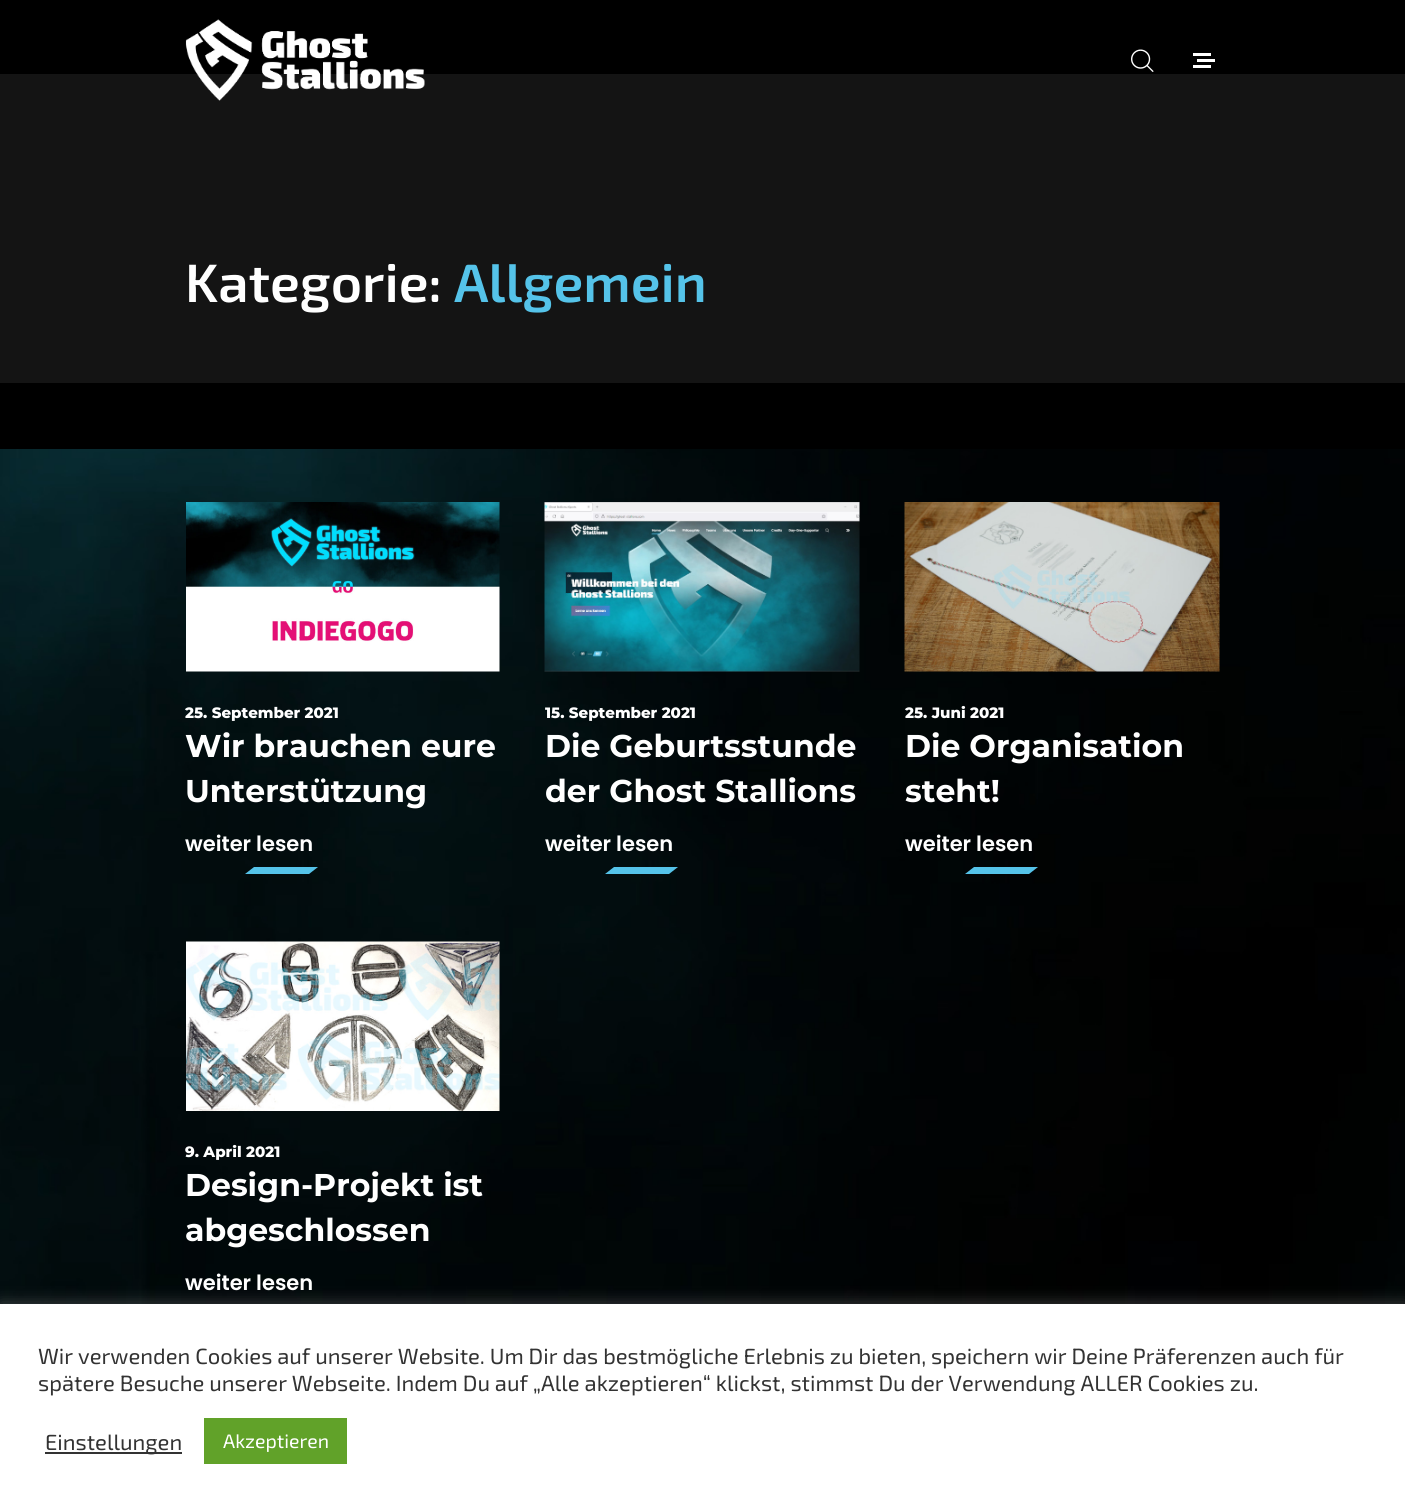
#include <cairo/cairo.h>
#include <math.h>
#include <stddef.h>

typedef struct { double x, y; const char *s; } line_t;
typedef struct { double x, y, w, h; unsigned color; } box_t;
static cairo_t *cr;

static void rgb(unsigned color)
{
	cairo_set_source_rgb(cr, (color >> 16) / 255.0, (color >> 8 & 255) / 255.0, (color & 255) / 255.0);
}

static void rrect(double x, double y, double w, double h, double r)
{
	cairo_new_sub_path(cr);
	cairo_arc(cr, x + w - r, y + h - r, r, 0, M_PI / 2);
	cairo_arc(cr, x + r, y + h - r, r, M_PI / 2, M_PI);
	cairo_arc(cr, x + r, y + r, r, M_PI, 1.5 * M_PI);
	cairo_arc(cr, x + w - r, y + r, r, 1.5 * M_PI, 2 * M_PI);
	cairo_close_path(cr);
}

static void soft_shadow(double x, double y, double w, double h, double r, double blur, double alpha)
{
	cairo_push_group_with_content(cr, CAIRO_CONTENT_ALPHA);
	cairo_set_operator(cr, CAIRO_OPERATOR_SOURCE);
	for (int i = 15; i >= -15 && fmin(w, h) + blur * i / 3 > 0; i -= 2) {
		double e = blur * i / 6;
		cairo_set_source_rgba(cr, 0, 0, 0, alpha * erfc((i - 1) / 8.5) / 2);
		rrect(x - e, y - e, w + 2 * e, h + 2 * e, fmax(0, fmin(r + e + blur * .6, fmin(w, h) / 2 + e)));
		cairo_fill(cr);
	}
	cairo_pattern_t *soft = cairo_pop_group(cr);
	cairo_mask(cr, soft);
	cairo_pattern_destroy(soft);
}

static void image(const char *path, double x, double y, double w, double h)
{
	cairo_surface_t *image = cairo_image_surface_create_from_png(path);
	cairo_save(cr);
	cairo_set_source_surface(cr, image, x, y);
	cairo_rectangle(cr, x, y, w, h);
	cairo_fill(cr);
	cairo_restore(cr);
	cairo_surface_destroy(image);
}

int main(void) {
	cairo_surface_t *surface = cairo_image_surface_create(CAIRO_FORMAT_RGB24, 1405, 1508);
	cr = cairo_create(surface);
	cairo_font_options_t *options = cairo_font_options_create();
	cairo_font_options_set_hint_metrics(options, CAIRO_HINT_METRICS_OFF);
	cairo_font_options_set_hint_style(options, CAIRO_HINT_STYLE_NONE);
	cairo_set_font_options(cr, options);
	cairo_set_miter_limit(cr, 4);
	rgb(0x000000);
	cairo_paint(cr);
	rgb(0x141414);
	cairo_rectangle(cr, 0, 74, 1405, 309);
	cairo_fill(cr);
	image("img/1.png", 185, 19, 240, 82);
	image("img/2.png", 1131, 49, 23, 23);
	{
		static const box_t items[] = {
			{1193, 53, 18, 3, 0xffffff},
			{1197, 59, 18, 3, 0xffffff},
			{1193, 65, 18, 3, 0xffffff},
		};
		for (size_t i = 0; i < sizeof items / sizeof *items; i++) {
			rgb(items[i].color);
			cairo_rectangle(cr, items[i].x, items[i].y, items[i].w, items[i].h);
			cairo_fill(cr);
		}
	}
	image("img/3.png", 0, 449, 1405, 855);
	image("img/4.png", 186, 502, 314, 170);
	rgb(0x55c3e9);
	cairo_new_path(cr);
	cairo_move_to(cr, 254, 867);
	cairo_line_to(cr, 318, 867);
	cairo_line_to(cr, 309, 874);
	cairo_line_to(cr, 245, 874);
	cairo_close_path(cr);
	cairo_fill(cr);
	image("img/5.png", 544, 502, 316, 170);
	cairo_new_path(cr);
	cairo_move_to(cr, 614, 867);
	cairo_line_to(cr, 678, 867);
	cairo_line_to(cr, 669, 874);
	cairo_line_to(cr, 605, 874);
	cairo_close_path(cr);
	cairo_fill(cr);
	image("img/6.png", 904, 502, 316, 170);
	cairo_new_path(cr);
	cairo_move_to(cr, 974, 867);
	cairo_line_to(cr, 1038, 867);
	cairo_line_to(cr, 1029, 874);
	cairo_line_to(cr, 965, 874);
	cairo_close_path(cr);
	cairo_fill(cr);
	image("img/7.png", 186, 941, 314, 170);
	rgb(0xacabab);
	soft_shadow(0, 1302, 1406, 206, 0, 7.5, 0.3);
	{
		static const box_t items[] = {
			{0, 1304, 1405, 204, 0xffffff},
			{45, 1452, 137, 2, 0x333333},
			{204, 1418, 143, 46, 0x61a229},
		};
		for (size_t i = 0; i < sizeof items / sizeof *items; i++) {
			rgb(items[i].color);
			cairo_rectangle(cr, items[i].x, items[i].y, items[i].w, items[i].h);
			cairo_fill(cr);
		}
	}
	cairo_select_font_face(cr, "Exo 2 SemiBold", CAIRO_FONT_SLANT_NORMAL, CAIRO_FONT_WEIGHT_NORMAL);
	cairo_set_font_size(cr, 54);
	rgb(0xffffff);
	cairo_move_to(cr, 185, 302);
	cairo_show_text(cr, "Kategorie:");
	rgb(0x55c3e9);
	cairo_move_to(cr, 454, 302);
	cairo_show_text(cr, "Allgemein");
	cairo_select_font_face(cr, "Montserrat ExtraBold", CAIRO_FONT_SLANT_NORMAL, CAIRO_FONT_WEIGHT_NORMAL);
	cairo_set_font_size(cr, 15);
	rgb(0xffffff);
	cairo_move_to(cr, 185, 718);
	cairo_show_text(cr, "25. September 2021");
	cairo_select_font_face(cr, "Montserrat", CAIRO_FONT_SLANT_NORMAL, CAIRO_FONT_WEIGHT_BOLD);
	cairo_set_font_size(cr, 31.5);
	cairo_move_to(cr, 185, 757);
	cairo_show_text(cr, "Wir brauchen eure");
	cairo_move_to(cr, 185, 802);
	cairo_show_text(cr, "Unterstützung");
	cairo_select_font_face(cr, "Poppins SemiBold", CAIRO_FONT_SLANT_NORMAL, CAIRO_FONT_WEIGHT_NORMAL);
	cairo_set_font_size(cr, 21);
	cairo_move_to(cr, 185, 851);
	cairo_show_text(cr, "weiter lesen");
	cairo_select_font_face(cr, "Montserrat ExtraBold", CAIRO_FONT_SLANT_NORMAL, CAIRO_FONT_WEIGHT_NORMAL);
	cairo_set_font_size(cr, 15);
	cairo_move_to(cr, 545, 718);
	cairo_show_text(cr, "15. September 2021");
	cairo_select_font_face(cr, "Montserrat", CAIRO_FONT_SLANT_NORMAL, CAIRO_FONT_WEIGHT_BOLD);
	cairo_set_font_size(cr, 31.5);
	cairo_move_to(cr, 545, 757);
	cairo_show_text(cr, "Die Geburtsstunde");
	cairo_move_to(cr, 545, 802);
	cairo_show_text(cr, "der Ghost Stallions");
	cairo_select_font_face(cr, "Poppins SemiBold", CAIRO_FONT_SLANT_NORMAL, CAIRO_FONT_WEIGHT_NORMAL);
	cairo_set_font_size(cr, 21);
	cairo_move_to(cr, 545, 851);
	cairo_show_text(cr, "weiter lesen");
	cairo_select_font_face(cr, "Montserrat ExtraBold", CAIRO_FONT_SLANT_NORMAL, CAIRO_FONT_WEIGHT_NORMAL);
	cairo_set_font_size(cr, 15);
	cairo_move_to(cr, 905, 718);
	cairo_show_text(cr, "25. Juni 2021");
	cairo_select_font_face(cr, "Montserrat", CAIRO_FONT_SLANT_NORMAL, CAIRO_FONT_WEIGHT_BOLD);
	cairo_set_font_size(cr, 31.5);
	cairo_move_to(cr, 905, 757);
	cairo_show_text(cr, "Die Organisation");
	cairo_move_to(cr, 905, 802);
	cairo_show_text(cr, "steht!");
	cairo_select_font_face(cr, "Poppins SemiBold", CAIRO_FONT_SLANT_NORMAL, CAIRO_FONT_WEIGHT_NORMAL);
	cairo_set_font_size(cr, 21);
	cairo_move_to(cr, 905, 851);
	cairo_show_text(cr, "weiter lesen");
	cairo_select_font_face(cr, "Montserrat ExtraBold", CAIRO_FONT_SLANT_NORMAL, CAIRO_FONT_WEIGHT_NORMAL);
	cairo_set_font_size(cr, 15);
	cairo_move_to(cr, 185, 1157);
	cairo_show_text(cr, "9. April 2021");
	cairo_select_font_face(cr, "Montserrat", CAIRO_FONT_SLANT_NORMAL, CAIRO_FONT_WEIGHT_BOLD);
	cairo_set_font_size(cr, 31.5);
	cairo_move_to(cr, 185, 1196);
	cairo_show_text(cr, "Design-Projekt ist");
	cairo_move_to(cr, 185, 1241);
	cairo_show_text(cr, "abgeschlossen");
	cairo_select_font_face(cr, "Poppins SemiBold", CAIRO_FONT_SLANT_NORMAL, CAIRO_FONT_WEIGHT_NORMAL);
	cairo_set_font_size(cr, 21);
	cairo_move_to(cr, 185, 1290);
	cairo_show_text(cr, "weiter lesen");
	cairo_select_font_face(cr, "Exo 2", CAIRO_FONT_SLANT_NORMAL, CAIRO_FONT_WEIGHT_NORMAL);
	cairo_set_font_size(cr, 22);
	rgb(0x333333);
	{
		static const line_t items[] = {
			{38, 1364, "Wir verwenden Cookies auf unserer Website. Um Dir das bestmögliche Erlebnis zu bieten, speichern wir Deine Präferenzen auch für"},
			{38, 1391, "spätere Besuche unserer Webseite. Indem Du auf „Alle akzeptieren“ klickst, stimmst Du der Verwendung ALLER Cookies zu."},
			{45, 1450, "Einstellungen"},
		};
		for (size_t i = 0; i < sizeof items / sizeof *items; i++) {
			cairo_move_to(cr, items[i].x, items[i].y);
			cairo_show_text(cr, items[i].s);
		}
	}
	cairo_set_font_size(cr, 19.5);
	rgb(0xffffff);
	cairo_move_to(cr, 223, 1448);
	cairo_show_text(cr, "Akzeptieren");
	cairo_surface_write_to_png(surface, "page.png");
	cairo_font_options_destroy(options);
	cairo_destroy(cr);
	cairo_surface_destroy(surface);
	return 0;
}
